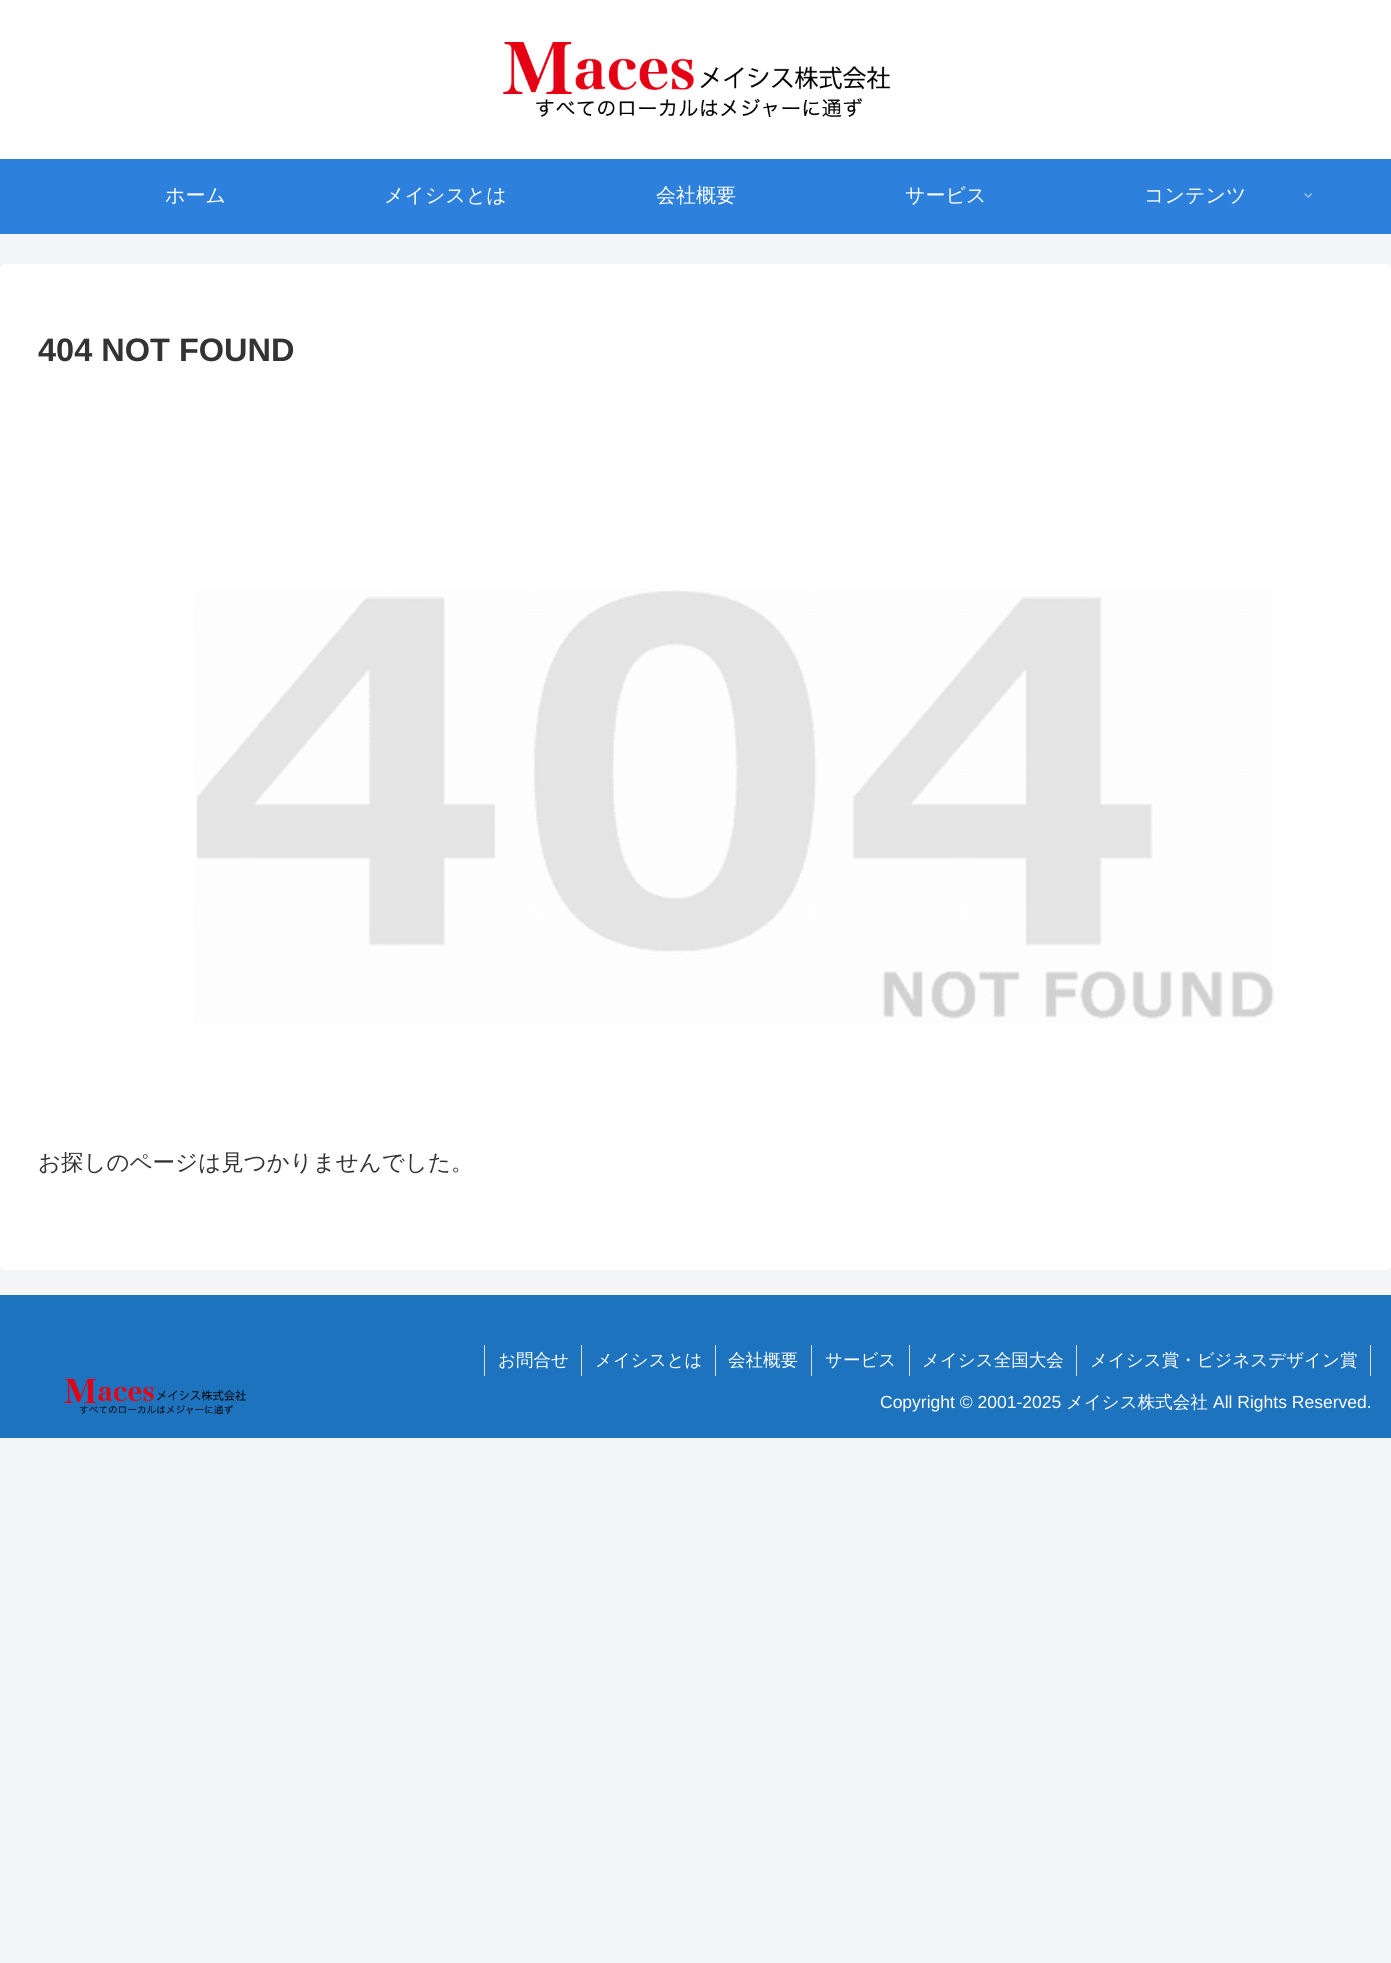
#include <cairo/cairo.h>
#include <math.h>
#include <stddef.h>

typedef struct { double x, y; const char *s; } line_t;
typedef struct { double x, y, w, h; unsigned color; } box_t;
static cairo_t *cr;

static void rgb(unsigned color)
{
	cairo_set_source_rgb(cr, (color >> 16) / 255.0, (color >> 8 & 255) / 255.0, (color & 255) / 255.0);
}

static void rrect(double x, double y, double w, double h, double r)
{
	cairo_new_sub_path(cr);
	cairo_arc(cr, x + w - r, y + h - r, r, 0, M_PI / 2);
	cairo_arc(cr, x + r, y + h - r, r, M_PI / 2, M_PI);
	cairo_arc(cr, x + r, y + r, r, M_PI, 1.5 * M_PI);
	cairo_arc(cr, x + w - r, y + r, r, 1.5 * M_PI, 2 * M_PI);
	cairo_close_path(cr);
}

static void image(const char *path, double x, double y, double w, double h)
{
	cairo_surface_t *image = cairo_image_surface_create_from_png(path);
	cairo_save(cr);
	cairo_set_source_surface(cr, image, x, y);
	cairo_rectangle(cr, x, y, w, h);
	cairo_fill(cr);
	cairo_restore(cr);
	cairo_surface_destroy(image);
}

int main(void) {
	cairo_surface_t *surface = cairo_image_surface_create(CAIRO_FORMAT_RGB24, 1391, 1963);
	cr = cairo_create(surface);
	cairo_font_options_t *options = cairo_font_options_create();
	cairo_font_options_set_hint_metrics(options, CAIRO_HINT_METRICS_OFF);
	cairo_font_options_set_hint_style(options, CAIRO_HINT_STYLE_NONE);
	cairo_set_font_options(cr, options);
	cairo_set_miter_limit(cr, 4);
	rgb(0xf4f5f7);
	cairo_paint(cr);
	rgb(0xffffff);
	cairo_rectangle(cr, 0, 0, 1391, 159);
	cairo_fill(cr);
	image("img/1.png", 503, 42, 388, 76);
	rgb(0x2e80dd);
	cairo_rectangle(cr, 0, 159, 1391, 75);
	cairo_fill(cr);
	image("img/2.png", 1304, 193, 8, 5);
	rgb(0xffffff);
	rrect(0, 264, 1391, 1006, 5);
	cairo_fill(cr);
	image("img/3.png", 195, 589, 1079, 434);
	rgb(0x1e73be);
	cairo_rectangle(cr, 0, 1295, 1391, 143);
	cairo_fill(cr);
	image("img/4.png", 64, 1378, 182, 36);
	{
		static const box_t items[] = {
			{484, 1345, 1, 31, 0xdddddd},
			{581, 1345, 1, 31, 0xdddddd},
			{715, 1345, 1, 31, 0xdddddd},
			{811, 1345, 1, 31, 0xdddddd},
			{909, 1345, 1, 31, 0xdddddd},
			{1370, 1345, 1, 31, 0xdddddd},
			{1076, 1345, 1, 31, 0xdddddd},
		};
		for (size_t i = 0; i < sizeof items / sizeof *items; i++) {
			rgb(items[i].color);
			cairo_rectangle(cr, items[i].x, items[i].y, items[i].w, items[i].h);
			cairo_fill(cr);
		}
	}
	cairo_select_font_face(cr, "WenQuanYi Zen Hei Medium", CAIRO_FONT_SLANT_NORMAL, CAIRO_FONT_WEIGHT_NORMAL);
	cairo_set_font_size(cr, 20);
	rgb(0xffffff);
	{
		static const line_t items[] = {
			{165, 202, "ホーム"},
			{384, 202, "メイシスとは"},
			{656, 202, "会社概要"},
			{905, 202, "サービス"},
			{1144, 202, "コンテンツ"},
		};
		for (size_t i = 0; i < sizeof items / sizeof *items; i++) {
			cairo_move_to(cr, items[i].x, items[i].y);
			cairo_show_text(cr, items[i].s);
		}
	}
	cairo_select_font_face(cr, "Liberation Sans", CAIRO_FONT_SLANT_NORMAL, CAIRO_FONT_WEIGHT_BOLD);
	cairo_set_font_size(cr, 32.5);
	rgb(0x333333);
	cairo_move_to(cr, 38, 361);
	cairo_show_text(cr, "404 NOT FOUND");
	cairo_select_font_face(cr, "WenQuanYi Zen Hei Medium", CAIRO_FONT_SLANT_NORMAL, CAIRO_FONT_WEIGHT_NORMAL);
	cairo_set_font_size(cr, 22.5);
	cairo_move_to(cr, 38, 1170);
	cairo_show_text(cr, "お探しのページは見つかりませんでした。");
	cairo_set_font_size(cr, 17.5);
	rgb(0xffffff);
	{
		static const line_t items[] = {
			{498, 1366, "お問合せ"},
			{595, 1366, "メイシスとは"},
			{728, 1366, "会社概要"},
			{825, 1366, "サービス"},
			{922, 1366, "メイシス全国大会"},
			{1090, 1366, "メイシス賞・ビジネスデザイン賞"},
		};
		for (size_t i = 0; i < sizeof items / sizeof *items; i++) {
			cairo_move_to(cr, items[i].x, items[i].y);
			cairo_show_text(cr, items[i].s);
		}
	}
	cairo_select_font_face(cr, "Liberation Sans", CAIRO_FONT_SLANT_NORMAL, CAIRO_FONT_WEIGHT_NORMAL);
	cairo_move_to(cr, 880, 1408);
	cairo_show_text(cr, "Copyright © 2001-2025");
	cairo_select_font_face(cr, "WenQuanYi Zen Hei Medium", CAIRO_FONT_SLANT_NORMAL, CAIRO_FONT_WEIGHT_NORMAL);
	cairo_move_to(cr, 1066, 1408);
	cairo_show_text(cr, "メイシス株式会社");
	cairo_select_font_face(cr, "Liberation Sans", CAIRO_FONT_SLANT_NORMAL, CAIRO_FONT_WEIGHT_NORMAL);
	cairo_move_to(cr, 1213, 1408);
	cairo_show_text(cr, "All Rights Reserved.");
	cairo_surface_write_to_png(surface, "page.png");
	cairo_font_options_destroy(options);
	cairo_destroy(cr);
	cairo_surface_destroy(surface);
	return 0;
}
